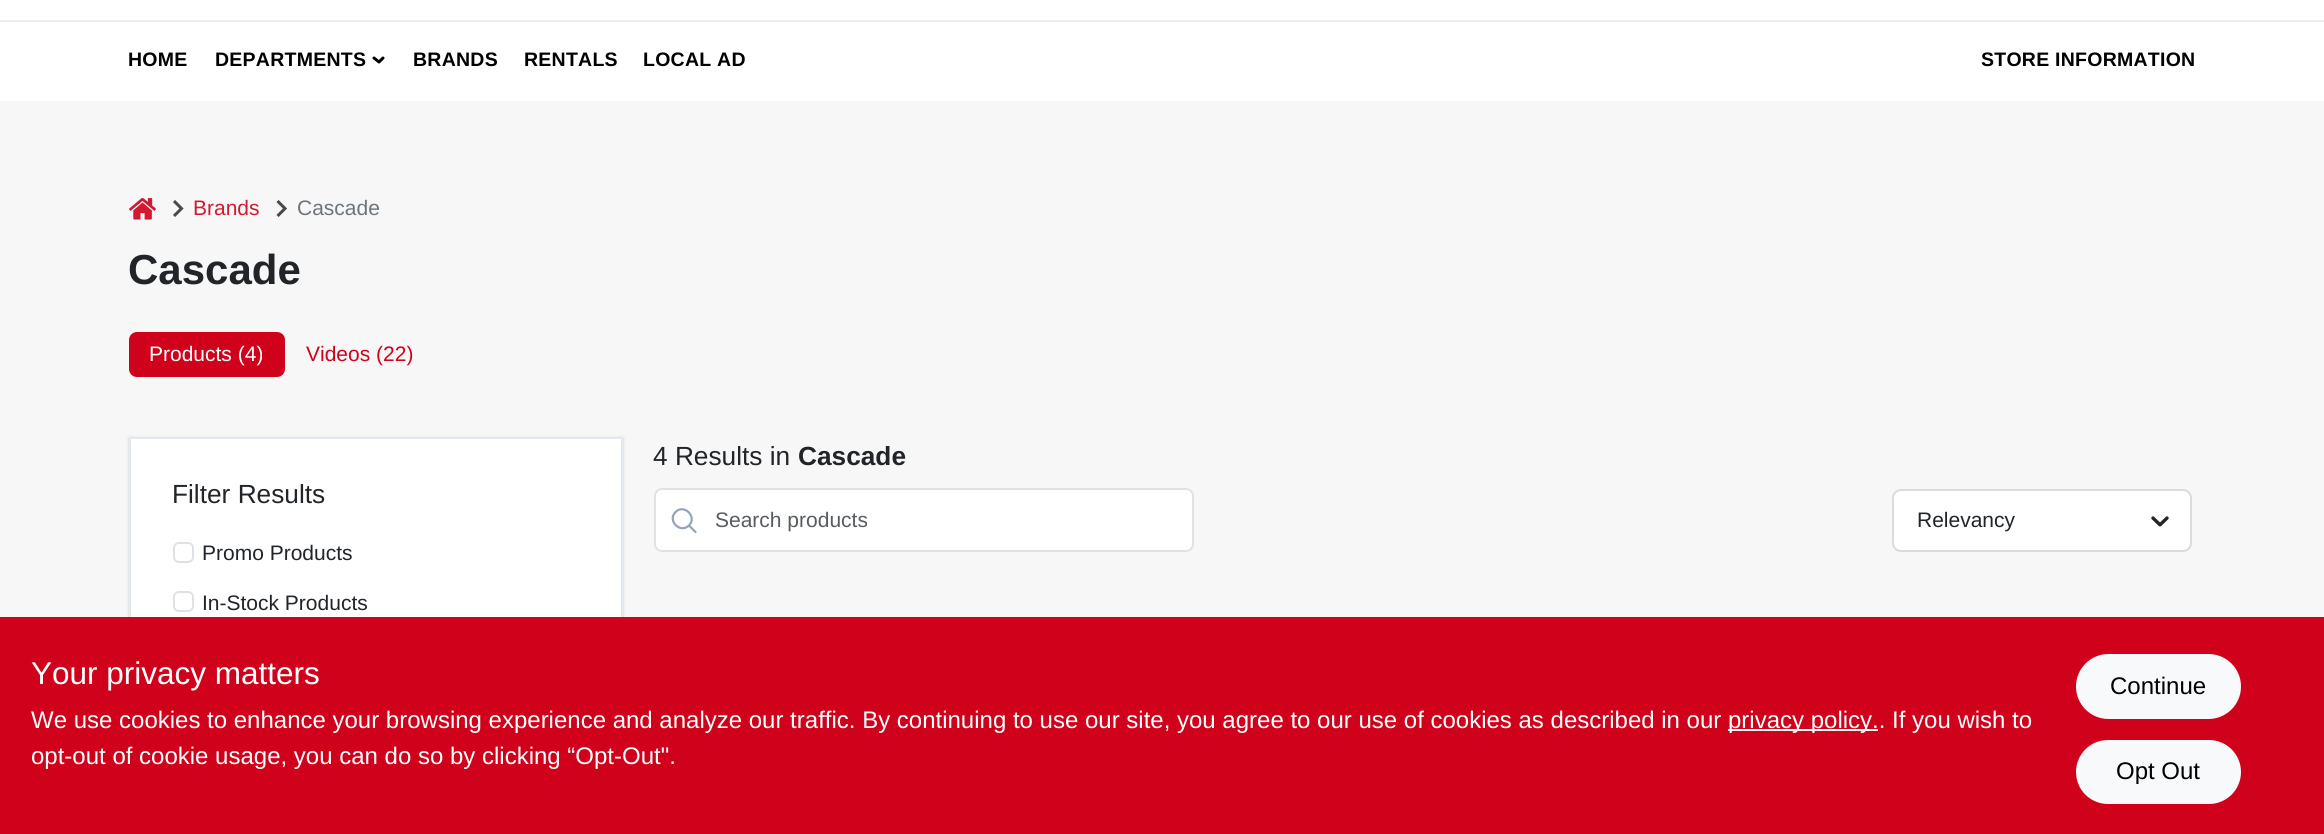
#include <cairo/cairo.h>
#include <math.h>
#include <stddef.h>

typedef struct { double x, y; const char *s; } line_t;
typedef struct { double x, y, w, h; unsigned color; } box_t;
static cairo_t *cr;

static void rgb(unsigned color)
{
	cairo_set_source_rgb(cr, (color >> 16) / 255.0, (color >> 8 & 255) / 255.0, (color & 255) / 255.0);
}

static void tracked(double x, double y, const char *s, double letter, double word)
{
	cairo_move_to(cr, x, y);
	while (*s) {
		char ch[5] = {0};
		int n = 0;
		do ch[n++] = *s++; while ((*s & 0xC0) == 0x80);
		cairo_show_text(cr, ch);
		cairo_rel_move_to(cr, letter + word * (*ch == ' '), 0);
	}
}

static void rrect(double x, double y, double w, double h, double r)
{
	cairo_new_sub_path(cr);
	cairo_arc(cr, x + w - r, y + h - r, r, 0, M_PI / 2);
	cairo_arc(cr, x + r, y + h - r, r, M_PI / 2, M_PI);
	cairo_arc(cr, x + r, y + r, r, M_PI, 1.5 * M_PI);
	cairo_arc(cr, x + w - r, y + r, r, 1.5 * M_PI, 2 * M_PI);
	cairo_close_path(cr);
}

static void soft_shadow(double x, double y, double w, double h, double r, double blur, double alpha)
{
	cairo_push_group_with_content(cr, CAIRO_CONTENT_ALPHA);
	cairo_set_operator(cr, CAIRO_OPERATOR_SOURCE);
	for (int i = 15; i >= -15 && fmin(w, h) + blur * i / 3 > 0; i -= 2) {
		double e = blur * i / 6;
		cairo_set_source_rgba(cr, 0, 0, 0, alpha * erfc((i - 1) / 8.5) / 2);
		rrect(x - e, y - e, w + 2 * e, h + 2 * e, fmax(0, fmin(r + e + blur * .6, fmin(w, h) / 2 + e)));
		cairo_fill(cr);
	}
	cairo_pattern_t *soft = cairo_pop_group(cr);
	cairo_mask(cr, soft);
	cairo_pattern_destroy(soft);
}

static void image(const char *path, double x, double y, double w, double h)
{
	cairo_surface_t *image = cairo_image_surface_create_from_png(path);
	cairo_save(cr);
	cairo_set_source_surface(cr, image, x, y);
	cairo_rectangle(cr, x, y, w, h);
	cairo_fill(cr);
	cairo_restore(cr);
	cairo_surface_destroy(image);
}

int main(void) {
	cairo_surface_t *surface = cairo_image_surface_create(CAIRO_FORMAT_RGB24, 2324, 834);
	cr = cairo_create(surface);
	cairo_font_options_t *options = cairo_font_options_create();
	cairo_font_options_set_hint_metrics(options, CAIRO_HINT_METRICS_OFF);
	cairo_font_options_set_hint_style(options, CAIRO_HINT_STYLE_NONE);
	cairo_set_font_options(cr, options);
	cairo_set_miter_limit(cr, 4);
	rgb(0xf7f7f7);
	cairo_paint(cr);
	{
		static const box_t items[] = {
			{0, 0, 2324, 20, 0xffffff},
			{0, 22, 2324, 79, 0xffffff},
			{0, 20, 2324, 2, 0xededed},
		};
		for (size_t i = 0; i < sizeof items / sizeof *items; i++) {
			rgb(items[i].color);
			cairo_rectangle(cr, items[i].x, items[i].y, items[i].w, items[i].h);
			cairo_fill(cr);
		}
	}
	cairo_new_path(cr);
	cairo_move_to(cr, 383, 58);
	cairo_line_to(cr, 379, 62);
	cairo_line_to(cr, 374, 58);
	rgb(0x000000);
	cairo_set_line_width(cr, 3);
	cairo_set_line_cap(cr, CAIRO_LINE_CAP_ROUND);
	cairo_set_line_join(cr, CAIRO_LINE_JOIN_ROUND);
	cairo_stroke(cr);
	image("img/1.png", 129, 198, 27, 22);
	cairo_new_path(cr);
	cairo_move_to(cr, 174, 201);
	cairo_line_to(cr, 181.5, 208.5);
	cairo_line_to(cr, 174, 216);
	rgb(0x494949);
	cairo_set_line_cap(cr, CAIRO_LINE_CAP_BUTT);
	cairo_set_line_join(cr, CAIRO_LINE_JOIN_MITER);
	cairo_stroke(cr);
	cairo_new_path(cr);
	cairo_move_to(cr, 277.5, 201);
	cairo_line_to(cr, 285, 208.5);
	cairo_line_to(cr, 277.5, 216);
	cairo_stroke(cr);
	rgb(0xd0021b);
	rrect(129, 332, 156, 45, 8);
	cairo_fill(cr);
	rgb(0x000000);
	soft_shadow(129, 438, 494, 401, 0, 1.5, 0.06);
	soft_shadow(129, 438, 494, 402, 0, 2, 0.1);
	rgb(0xffffff);
	cairo_rectangle(cr, 131, 439, 490, 178);
	cairo_fill(cr);
	cairo_rectangle(cr, 130, 438, 492, 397);
	rgb(0xe2e8f0);
	cairo_set_line_width(cr, 2);
	cairo_stroke(cr);
	rrect(174, 543, 19, 19, 5);
	rgb(0xdee2e6);
	cairo_stroke(cr);
	rrect(174, 592, 19, 19, 5);
	cairo_stroke(cr);
	rgb(0xffffff);
	rrect(656, 489, 537, 62, 6);
	cairo_fill(cr);
	cairo_new_path(cr);
	cairo_move_to(cr, 695.5, 532);
	cairo_line_to(cr, 689, 525.5);
	cairo_move_to(cr, 689, 525.5);
	cairo_curve_to(cr, 697.5, 516.5, 684, 503.5, 675.5, 512);
	cairo_curve_to(cr, 667, 520.5, 680, 534, 689, 525.5);
	cairo_close_path(cr);
	rgb(0x94a3b8);
	cairo_set_line_width(cr, 2.2);
	cairo_set_line_cap(cr, CAIRO_LINE_CAP_ROUND);
	cairo_set_line_join(cr, CAIRO_LINE_JOIN_ROUND);
	cairo_stroke(cr);
	rrect(655, 489, 538, 62, 7);
	rgb(0xdee2e6);
	cairo_set_line_width(cr, 2);
	cairo_set_line_cap(cr, CAIRO_LINE_CAP_BUTT);
	cairo_set_line_join(cr, CAIRO_LINE_JOIN_MITER);
	cairo_stroke(cr);
	rgb(0xffffff);
	rrect(1893, 490, 298, 61, 8);
	cairo_fill_preserve(cr);
	rgb(0xd8dbdf);
	cairo_stroke(cr);
	image("img/2.png", 2151, 516, 18, 11);
	rgb(0xd0021b);
	cairo_rectangle(cr, 0, 617, 2324, 217);
	cairo_fill(cr);
	rgb(0xffffff);
	cairo_rectangle(cr, 1728, 729, 150, 2);
	cairo_fill(cr);
	rgb(0xf8f9fa);
	rrect(2077, 655, 163, 63, 31.5);
	cairo_fill_preserve(cr);
	cairo_stroke(cr);
	rrect(2077, 741, 163, 62, 31);
	cairo_fill_preserve(cr);
	cairo_stroke(cr);
	cairo_select_font_face(cr, "Liberation Sans", CAIRO_FONT_SLANT_NORMAL, CAIRO_FONT_WEIGHT_BOLD);
	cairo_set_font_size(cr, 19.5);
	rgb(0x000000);
	{
		static const line_t items[] = {
			{128, 66, "HOME"},
			{215, 66, "DEPARTMENTS"},
			{413, 66, "BRANDS"},
			{524, 66, "RENTALS"},
			{643, 66, "LOCAL AD"},
			{1981, 66, "STORE INFORMATION"},
		};
		for (size_t i = 0; i < sizeof items / sizeof *items; i++) {
			tracked(items[i].x, items[i].y, items[i].s, 0.25, 0);
		}
	}
	cairo_select_font_face(cr, "Liberation Sans", CAIRO_FONT_SLANT_NORMAL, CAIRO_FONT_WEIGHT_NORMAL);
	cairo_set_font_size(cr, 21);
	rgb(0xd31931);
	cairo_move_to(cr, 193, 215);
	cairo_show_text(cr, "Brands");
	rgb(0x6c757d);
	cairo_move_to(cr, 297, 215);
	cairo_show_text(cr, "Cascade");
	cairo_select_font_face(cr, "Liberation Sans", CAIRO_FONT_SLANT_NORMAL, CAIRO_FONT_WEIGHT_BOLD);
	cairo_set_font_size(cr, 42);
	rgb(0x212529);
	cairo_move_to(cr, 128, 284);
	cairo_show_text(cr, "Cascade");
	cairo_select_font_face(cr, "Liberation Sans", CAIRO_FONT_SLANT_NORMAL, CAIRO_FONT_WEIGHT_NORMAL);
	cairo_set_font_size(cr, 21);
	rgb(0xffffff);
	cairo_move_to(cr, 149, 361);
	cairo_show_text(cr, "Products (4)");
	rgb(0xd0021b);
	cairo_move_to(cr, 306, 361);
	cairo_show_text(cr, "Videos (22)");
	cairo_set_font_size(cr, 26.25);
	rgb(0x212529);
	cairo_move_to(cr, 172, 503);
	cairo_show_text(cr, "Filter Results");
	cairo_set_font_size(cr, 21);
	cairo_move_to(cr, 202, 560);
	cairo_show_text(cr, "Promo Products");
	cairo_move_to(cr, 202, 610);
	cairo_show_text(cr, "In-Stock Products");
	cairo_set_font_size(cr, 26.25);
	cairo_move_to(cr, 653, 465);
	cairo_show_text(cr, "4 Results in");
	cairo_select_font_face(cr, "Liberation Sans", CAIRO_FONT_SLANT_NORMAL, CAIRO_FONT_WEIGHT_BOLD);
	cairo_move_to(cr, 798, 465);
	cairo_show_text(cr, "Cascade");
	cairo_select_font_face(cr, "Liberation Sans", CAIRO_FONT_SLANT_NORMAL, CAIRO_FONT_WEIGHT_NORMAL);
	cairo_set_font_size(cr, 21);
	rgb(0x595c5f);
	cairo_move_to(cr, 715, 527);
	cairo_show_text(cr, "Search products");
	rgb(0x212529);
	cairo_move_to(cr, 1917, 527);
	cairo_show_text(cr, "Relevancy");
	cairo_set_font_size(cr, 31.5);
	rgb(0xffffff);
	cairo_move_to(cr, 31, 684);
	cairo_show_text(cr, "Your privacy matters");
	cairo_set_font_size(cr, 24);
	{
		static const line_t items[] = {
			{31, 728, "We use cookies to enhance your browsing experience and analyze our traffic. By continuing to use our site, you agree to our use of cookies as described in our"},
			{1728, 728, "privacy policy.. If you wish to"},
			{31, 764, "opt-out of cookie usage, you can do so by clicking “Opt-Out\"."},
		};
		for (size_t i = 0; i < sizeof items / sizeof *items; i++) {
			cairo_move_to(cr, items[i].x, items[i].y);
			cairo_show_text(cr, items[i].s);
		}
	}
	rgb(0x000000);
	cairo_move_to(cr, 2110, 694);
	cairo_show_text(cr, "Continue");
	cairo_move_to(cr, 2116, 779);
	cairo_show_text(cr, "Opt Out");
	cairo_surface_write_to_png(surface, "page.png");
	cairo_font_options_destroy(options);
	cairo_destroy(cr);
	cairo_surface_destroy(surface);
	return 0;
}
